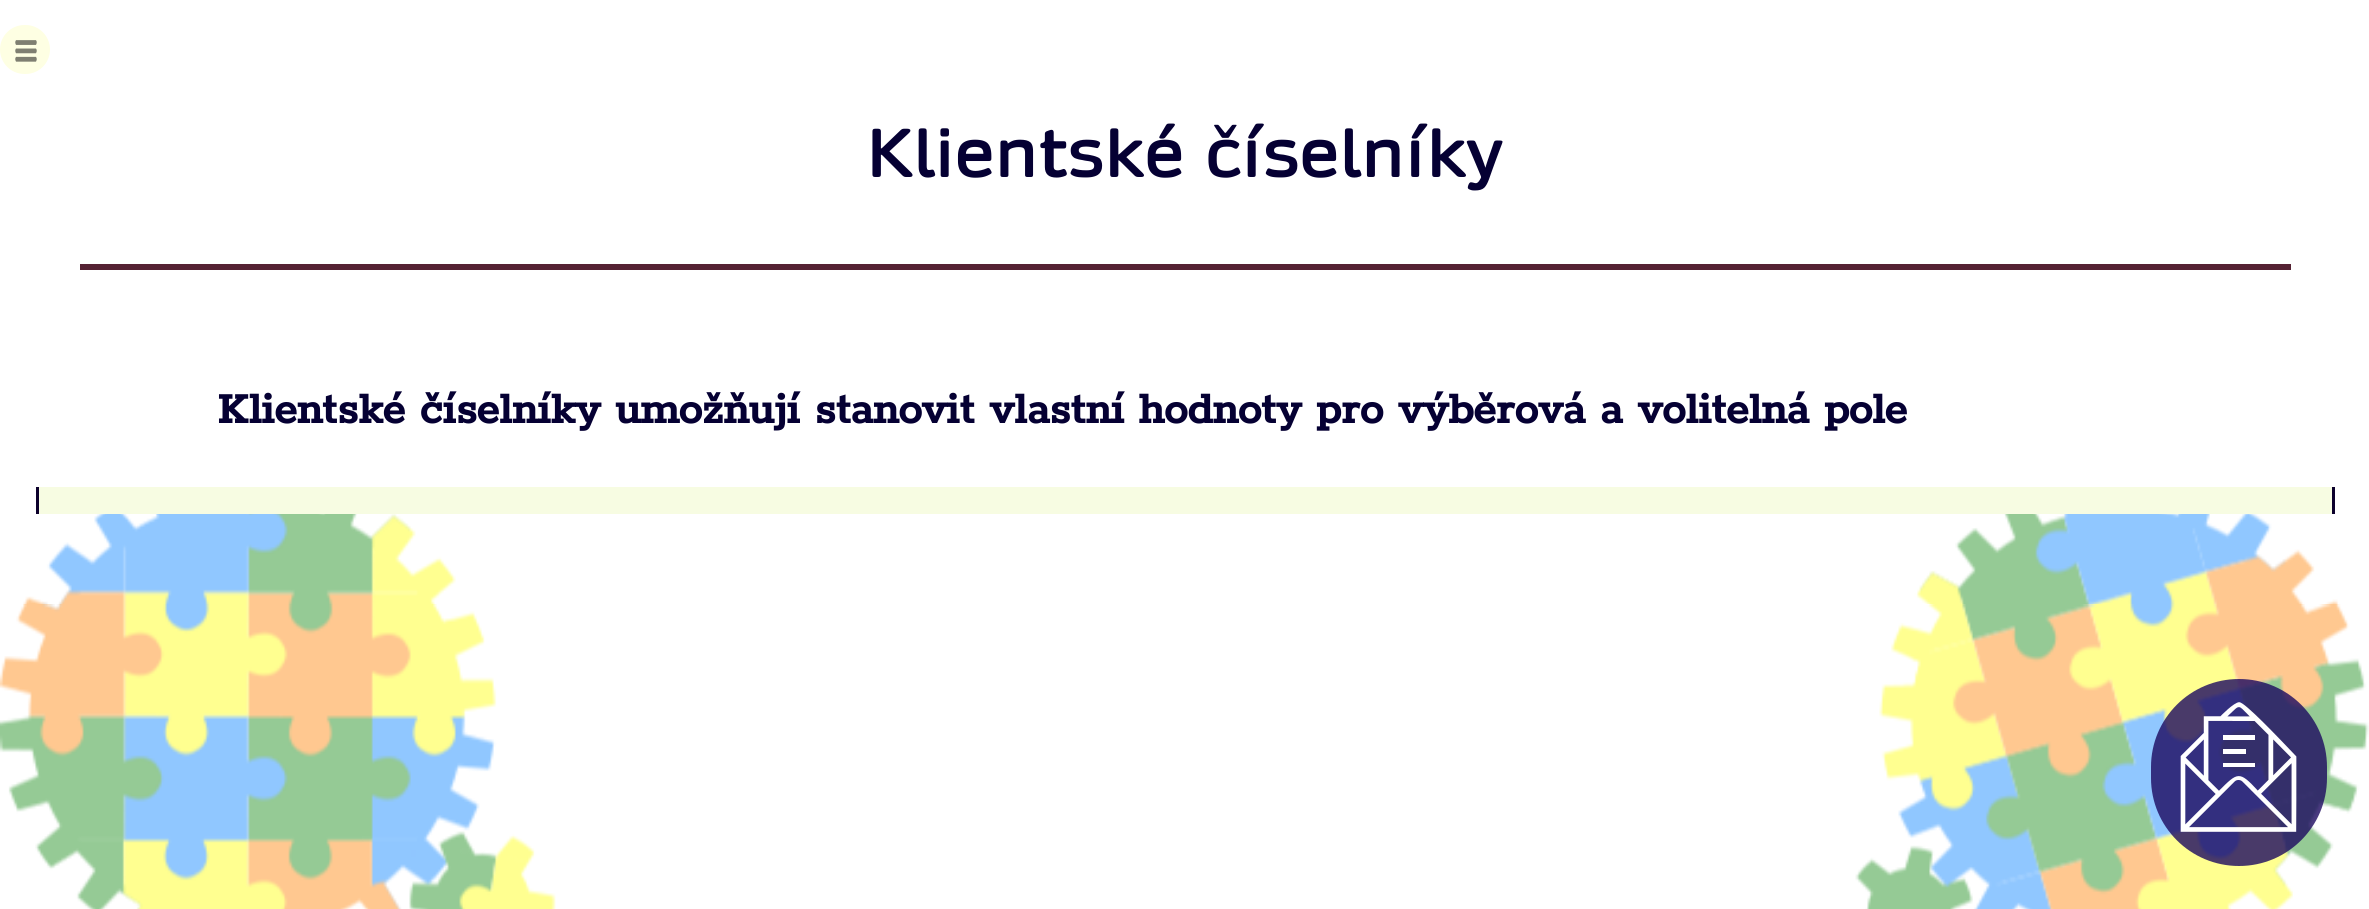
#include <cairo/cairo.h>
#include <math.h>
#include <stddef.h>

typedef struct { double x, y, w, h; unsigned color; } box_t;
static cairo_t *cr;

static void rgb(unsigned color)
{
	cairo_set_source_rgb(cr, (color >> 16) / 255.0, (color >> 8 & 255) / 255.0, (color & 255) / 255.0);
}

static void rrect(double x, double y, double w, double h, double r)
{
	cairo_new_sub_path(cr);
	cairo_arc(cr, x + w - r, y + h - r, r, 0, M_PI / 2);
	cairo_arc(cr, x + r, y + h - r, r, M_PI / 2, M_PI);
	cairo_arc(cr, x + r, y + r, r, M_PI, 1.5 * M_PI);
	cairo_arc(cr, x + w - r, y + r, r, 1.5 * M_PI, 2 * M_PI);
	cairo_close_path(cr);
}

static void image(const char *path, double x, double y, double w, double h)
{
	cairo_surface_t *image = cairo_image_surface_create_from_png(path);
	cairo_save(cr);
	cairo_set_source_surface(cr, image, x, y);
	cairo_rectangle(cr, x, y, w, h);
	cairo_fill(cr);
	cairo_restore(cr);
	cairo_surface_destroy(image);
}

int main(void) {
	cairo_surface_t *surface = cairo_image_surface_create(CAIRO_FORMAT_RGB24, 2369, 909);
	cr = cairo_create(surface);
	cairo_font_options_t *options = cairo_font_options_create();
	cairo_font_options_set_hint_metrics(options, CAIRO_HINT_METRICS_OFF);
	cairo_font_options_set_hint_style(options, CAIRO_HINT_STYLE_NONE);
	cairo_set_font_options(cr, options);
	cairo_set_miter_limit(cr, 4);
	rgb(0xffffff);
	cairo_paint(cr);
	image("img/1.png", 0, 514, 2369, 395);
	rgb(0xfeffe3);
	rrect(0, 25, 50, 49, 24.5);
	cairo_fill(cr);
	image("img/2.png", 15, 40, 22, 22);
	{
		static const box_t items[] = {
			{80, 264, 2211, 6, 0x552233},
			{39, 487, 2293, 27, 0xf7fce2},
			{2332, 487, 3, 27, 0x0c002c},
			{36, 487, 3, 27, 0x0c002c},
		};
		for (size_t i = 0; i < sizeof items / sizeof *items; i++) {
			rgb(items[i].color);
			cairo_rectangle(cr, items[i].x, items[i].y, items[i].w, items[i].h);
			cairo_fill(cr);
		}
	}
	cairo_set_source_rgba(cr, 0.11, 0.035, 0.373, 0.8);
	rrect(2151, 679, 176, 187, 88);
	cairo_fill(cr);
	image("img/3.png", 2180, 702, 117, 130);
	cairo_select_font_face(cr, "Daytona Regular", CAIRO_FONT_SLANT_NORMAL, CAIRO_FONT_WEIGHT_BOLD);
	cairo_set_font_size(cr, 66);
	rgb(0x050033);
	cairo_move_to(cr, 866, 177);
	cairo_show_text(cr, "Klientské číselníky");
	cairo_select_font_face(cr, "Rokkitt", CAIRO_FONT_SLANT_NORMAL, CAIRO_FONT_WEIGHT_BOLD);
	cairo_set_font_size(cr, 48.4);
	cairo_move_to(cr, 217, 423);
	cairo_show_text(cr, "Klientské číselníky umožňují stanovit vlastní hodnoty pro výběrová a volitelná pole");
	cairo_surface_write_to_png(surface, "page.png");
	cairo_font_options_destroy(options);
	cairo_destroy(cr);
	cairo_surface_destroy(surface);
	return 0;
}
